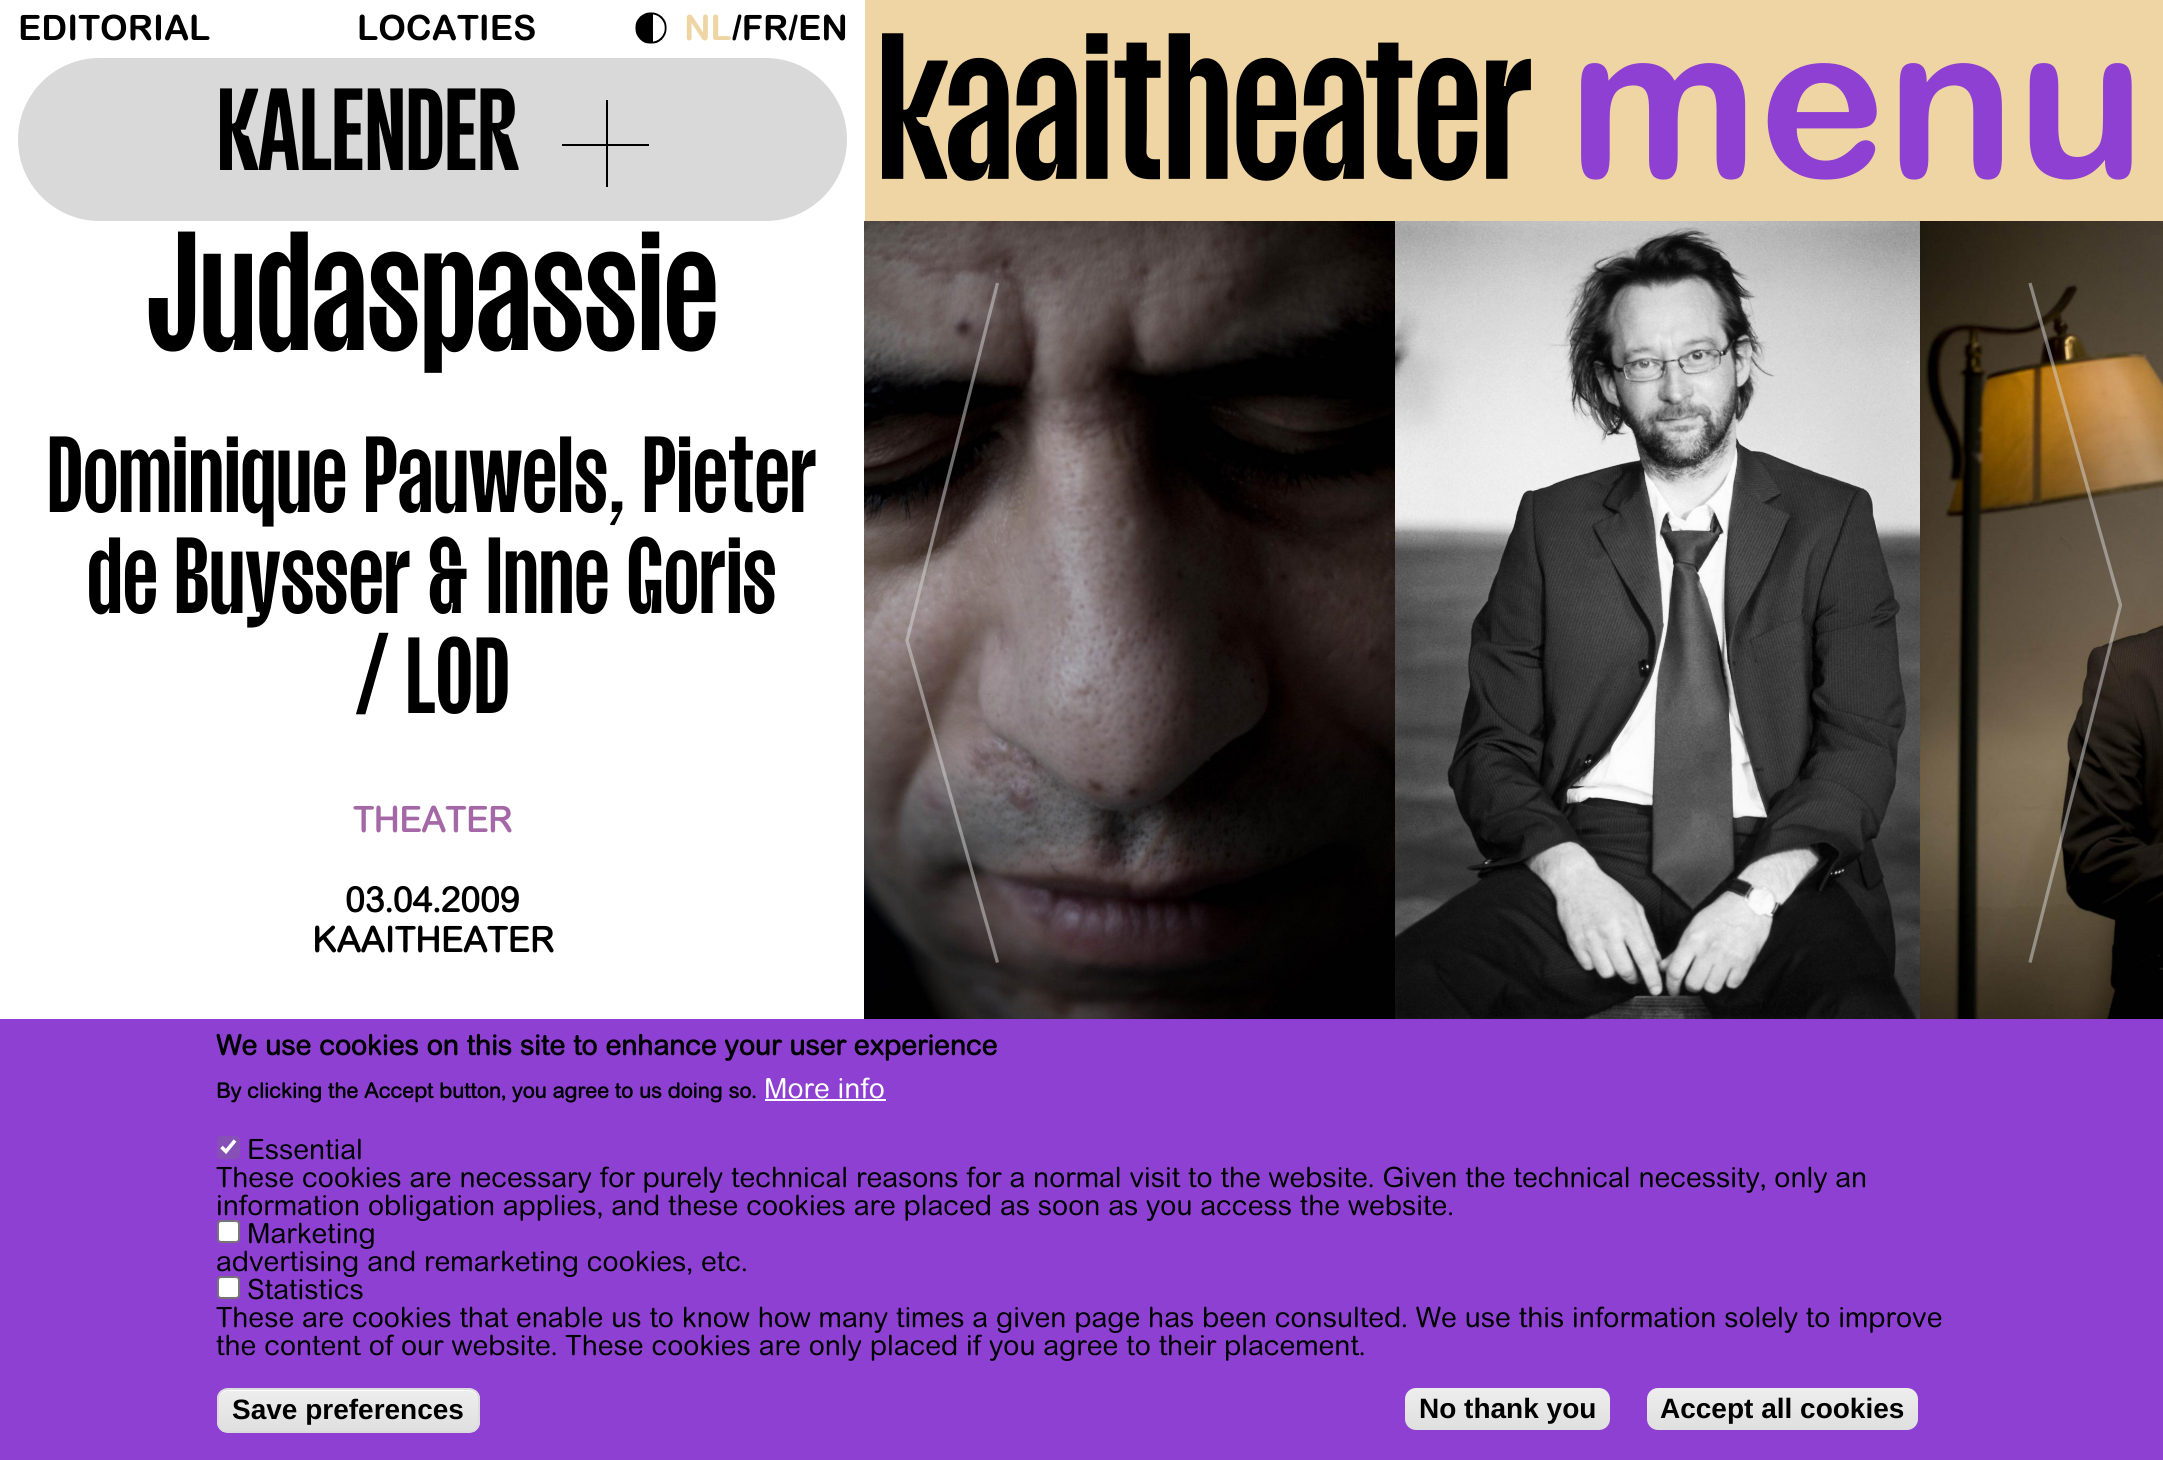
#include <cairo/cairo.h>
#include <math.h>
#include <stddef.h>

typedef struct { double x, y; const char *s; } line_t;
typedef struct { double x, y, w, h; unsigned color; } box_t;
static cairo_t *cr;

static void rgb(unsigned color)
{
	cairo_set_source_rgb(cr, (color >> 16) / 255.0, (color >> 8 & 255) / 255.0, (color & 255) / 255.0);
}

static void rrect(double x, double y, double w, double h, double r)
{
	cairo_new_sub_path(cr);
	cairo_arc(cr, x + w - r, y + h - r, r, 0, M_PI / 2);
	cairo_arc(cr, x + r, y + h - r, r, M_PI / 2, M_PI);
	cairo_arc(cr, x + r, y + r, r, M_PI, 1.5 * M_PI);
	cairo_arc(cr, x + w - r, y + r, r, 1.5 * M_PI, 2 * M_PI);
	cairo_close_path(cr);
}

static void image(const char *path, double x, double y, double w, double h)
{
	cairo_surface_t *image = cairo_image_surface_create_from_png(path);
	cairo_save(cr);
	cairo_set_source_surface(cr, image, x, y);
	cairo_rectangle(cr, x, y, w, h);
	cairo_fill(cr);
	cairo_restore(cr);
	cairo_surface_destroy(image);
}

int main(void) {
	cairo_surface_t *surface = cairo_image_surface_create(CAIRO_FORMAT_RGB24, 2163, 1460);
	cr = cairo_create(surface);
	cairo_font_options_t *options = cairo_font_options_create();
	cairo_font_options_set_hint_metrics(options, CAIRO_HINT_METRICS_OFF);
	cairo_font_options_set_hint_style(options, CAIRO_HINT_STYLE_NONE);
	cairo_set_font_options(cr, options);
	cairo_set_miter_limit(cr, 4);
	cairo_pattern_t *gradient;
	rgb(0xffffff);
	cairo_paint(cr);
	image("img/1.png", 635, 12, 32, 32);
	rgb(0xd9d9d9);
	rrect(18, 58, 829, 163, 81.5);
	cairo_fill(cr);
	{
		static const box_t items[] = {
			{562, 144, 87, 2, 0x000000},
			{606, 100, 2, 87, 0x000000},
			{865, 0, 1298, 221, 0xeed5a3},
		};
		for (size_t i = 0; i < sizeof items / sizeof *items; i++) {
			rgb(items[i].color);
			cairo_rectangle(cr, items[i].x, items[i].y, items[i].w, items[i].h);
			cairo_fill(cr);
		}
	}
	image("img/2.png", 882, 33, 649, 148);
	image("img/3.png", 864, 221, 531, 798);
	image("img/4.png", 1395, 221, 525, 798);
	image("img/5.png", 1920, 221, 243, 798);
	cairo_new_path(cr);
	cairo_move_to(cr, 997.5, 962.5);
	cairo_line_to(cr, 907, 640.5);
	cairo_line_to(cr, 997.5, 283);
	cairo_set_source_rgba(cr, 0.851, 0.851, 0.851, 0.5);
	cairo_set_line_width(cr, 3.3);
	cairo_stroke(cr);
	cairo_new_path(cr);
	cairo_move_to(cr, 2030, 283);
	cairo_line_to(cr, 2120.5, 605);
	cairo_line_to(cr, 2030, 962.5);
	cairo_stroke(cr);
	rgb(0x8d40d2);
	cairo_rectangle(cr, 0, 1019, 2163, 441);
	cairo_fill(cr);
	rgb(0xffffff);
	cairo_rectangle(cr, 765, 1099, 121, 2);
	cairo_fill(cr);
	rgb(0x8650b6);
	rrect(217, 1136, 23, 23, 4);
	cairo_fill(cr);
	cairo_new_path(cr);
	cairo_move_to(cr, 221.5, 1147);
	cairo_line_to(cr, 226, 1151.5);
	cairo_line_to(cr, 235, 1140.5);
	rgb(0xffffff);
	cairo_set_line_width(cr, 3.6);
	cairo_stroke(cr);
	cairo_save(cr);
	rrect(217, 1388, 263, 45, 11);
	cairo_clip(cr);
	gradient = cairo_pattern_create_linear(348, 1390, 348, 1432);
	cairo_pattern_add_color_stop_rgba(gradient, 0.05, 0.929, 0.929, 0.929, 1);
	cairo_pattern_add_color_stop_rgba(gradient, 1, 0.875, 0.875, 0.875, 1);
	cairo_set_source(cr, gradient);
	cairo_pattern_destroy(gradient);
	cairo_rectangle(cr, 217, 1390, 263, 42);
	cairo_fill(cr);
	cairo_restore(cr);
	cairo_new_path(cr);
	cairo_move_to(cr, 228, 1391);
	cairo_line_to(cr, 469, 1391);
	cairo_curve_to(cr, 474, 1391, 478, 1395, 478, 1400);
	cairo_line_to(cr, 478, 1399);
	cairo_curve_to(cr, 478, 1394, 474, 1390, 469, 1390);
	cairo_line_to(cr, 228, 1390);
	cairo_curve_to(cr, 223, 1390, 219, 1394, 219, 1399);
	cairo_line_to(cr, 219, 1400);
	cairo_curve_to(cr, 219, 1395, 223, 1391, 228, 1391);
	cairo_close_path(cr);
	cairo_fill(cr);
	rrect(218, 1389, 261, 43, 10);
	rgb(0xdcdcdc);
	cairo_set_line_width(cr, 2);
	cairo_stroke(cr);
	gradient = cairo_pattern_create_linear(1508, 1388, 1508, 1430);
	cairo_pattern_add_color_stop_rgba(gradient, 0.05, 0.929, 0.929, 0.929, 1);
	cairo_pattern_add_color_stop_rgba(gradient, 1, 0.875, 0.875, 0.875, 1);
	cairo_set_source(cr, gradient);
	cairo_pattern_destroy(gradient);
	rrect(1405, 1388, 205, 42, 11);
	cairo_fill(cr);
	gradient = cairo_pattern_create_linear(1782, 1388, 1782, 1430);
	cairo_pattern_add_color_stop_rgba(gradient, 0.05, 0.929, 0.929, 0.929, 1);
	cairo_pattern_add_color_stop_rgba(gradient, 1, 0.875, 0.875, 0.875, 1);
	cairo_set_source(cr, gradient);
	cairo_pattern_destroy(gradient);
	rrect(1647, 1388, 271, 42, 11);
	cairo_fill(cr);
	cairo_select_font_face(cr, "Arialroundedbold", CAIRO_FONT_SLANT_NORMAL, CAIRO_FONT_WEIGHT_BOLD);
	cairo_set_font_size(cr, 35);
	rgb(0x000000);
	cairo_move_to(cr, 18, 40);
	cairo_show_text(cr, "EDITORIAL");
	cairo_move_to(cr, 357, 40);
	cairo_show_text(cr, "LOCATIES");
	rgb(0xeed5a3);
	cairo_move_to(cr, 684, 40);
	cairo_show_text(cr, "NL");
	rgb(0x000000);
	cairo_move_to(cr, 732, 40);
	cairo_show_text(cr, "/FR/EN");
	cairo_select_font_face(cr, "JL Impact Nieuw", CAIRO_FONT_SLANT_NORMAL, CAIRO_FONT_WEIGHT_NORMAL);
	cairo_set_font_size(cr, 108.5);
	cairo_move_to(cr, 217, 170);
	cairo_show_text(cr, "KALENDER");
	cairo_select_font_face(cr, "Arialroundedbold", CAIRO_FONT_SLANT_NORMAL, CAIRO_FONT_WEIGHT_BOLD);
	cairo_set_font_size(cr, 215);
	rgb(0x8d40d2);
	cairo_move_to(cr, 1568, 177);
	cairo_show_text(cr, "menu");
	cairo_select_font_face(cr, "JL Impact Nieuw", CAIRO_FONT_SLANT_NORMAL, CAIRO_FONT_WEIGHT_NORMAL);
	cairo_set_font_size(cr, 157.5);
	rgb(0x000000);
	cairo_move_to(cr, 146, 350);
	cairo_show_text(cr, "Judaspassie");
	cairo_set_font_size(cr, 100.5);
	{
		static const line_t items[] = {
			{47, 512, "Dominique Pauwels, Pieter"},
			{87, 613, "de Buysser & Inne Goris"},
			{355, 713, "/ LOD"},
		};
		for (size_t i = 0; i < sizeof items / sizeof *items; i++) {
			cairo_move_to(cr, items[i].x, items[i].y);
			cairo_show_text(cr, items[i].s);
		}
	}
	cairo_select_font_face(cr, "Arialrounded", CAIRO_FONT_SLANT_NORMAL, CAIRO_FONT_WEIGHT_BOLD);
	cairo_set_font_size(cr, 35);
	rgb(0xa568a7);
	cairo_move_to(cr, 353, 832);
	cairo_show_text(cr, "THEATER");
	rgb(0x000000);
	cairo_move_to(cr, 345, 912);
	cairo_show_text(cr, "03.04.2009");
	cairo_move_to(cr, 312, 952);
	cairo_show_text(cr, "KAAITHEATER");
	cairo_set_font_size(cr, 28);
	cairo_move_to(cr, 216, 1055);
	cairo_show_text(cr, "We use cookies on this site to enhance your user experience");
	cairo_set_font_size(cr, 21);
	cairo_move_to(cr, 216, 1098);
	cairo_show_text(cr, "By clicking the Accept button, you agree to us doing so.");
	cairo_select_font_face(cr, "Arialrounded", CAIRO_FONT_SLANT_NORMAL, CAIRO_FONT_WEIGHT_NORMAL);
	cairo_set_font_size(cr, 28);
	rgb(0xffffff);
	cairo_move_to(cr, 764, 1098);
	cairo_show_text(cr, "More info");
	rgb(0x000000);
	{
		static const line_t items[] = {
			{247, 1159, "Essential"},
			{216, 1187, "These cookies are necessary for purely technical reasons for a normal visit to the website. Given the technical necessity, only an"},
			{216, 1215, "information obligation applies, and these cookies are placed as soon as you access the website."},
		};
		for (size_t i = 0; i < sizeof items / sizeof *items; i++) {
			cairo_move_to(cr, items[i].x, items[i].y);
			cairo_show_text(cr, items[i].s);
		}
	}
	rgb(0xffffff);
	rrect(218, 1221, 21, 21, 3);
	cairo_fill_preserve(cr);
	rgb(0x767676);
	cairo_stroke(cr);
	rgb(0x000000);
	cairo_move_to(cr, 247, 1243);
	cairo_show_text(cr, "Marketing");
	cairo_move_to(cr, 216, 1271);
	cairo_show_text(cr, "advertising and remarketing cookies, etc.");
	rgb(0xffffff);
	rrect(218, 1277, 21, 21, 3);
	cairo_fill_preserve(cr);
	rgb(0x767676);
	cairo_stroke(cr);
	rgb(0x000000);
	{
		static const line_t items[] = {
			{247, 1299, "Statistics"},
			{216, 1327, "These are cookies that enable us to know how many times a given page has been consulted. We use this information solely to improve"},
			{216, 1355, "the content of our website. These cookies are only placed if you agree to their placement."},
		};
		for (size_t i = 0; i < sizeof items / sizeof *items; i++) {
			cairo_move_to(cr, items[i].x, items[i].y);
			cairo_show_text(cr, items[i].s);
		}
	}
	cairo_select_font_face(cr, "Liberation Sans", CAIRO_FONT_SLANT_NORMAL, CAIRO_FONT_WEIGHT_BOLD);
	{
		static const line_t items[] = {
			{232, 1419, "Save preferences"},
			{1419, 1418, "No thank you"},
			{1660, 1418, "Accept all cookies"},
		};
		for (size_t i = 0; i < sizeof items / sizeof *items; i++) {
			cairo_move_to(cr, items[i].x, items[i].y);
			cairo_show_text(cr, items[i].s);
		}
	}
	cairo_surface_write_to_png(surface, "page.png");
	cairo_font_options_destroy(options);
	cairo_destroy(cr);
	cairo_surface_destroy(surface);
	return 0;
}
